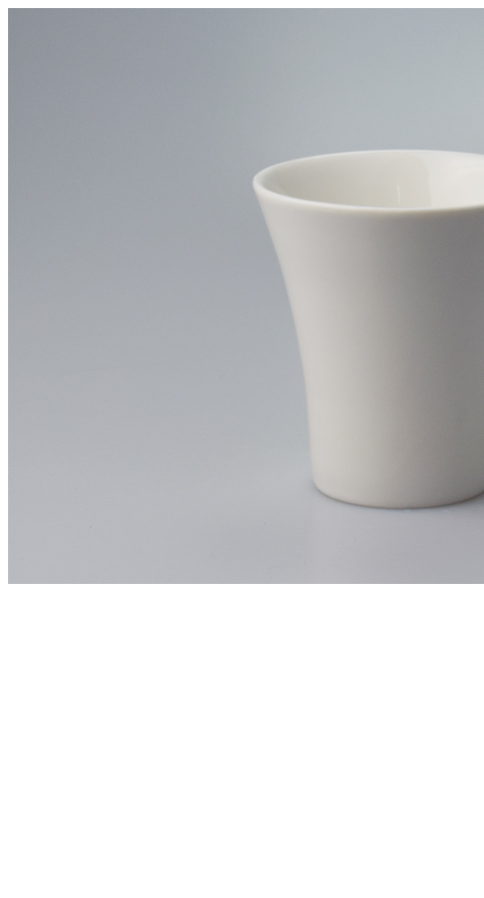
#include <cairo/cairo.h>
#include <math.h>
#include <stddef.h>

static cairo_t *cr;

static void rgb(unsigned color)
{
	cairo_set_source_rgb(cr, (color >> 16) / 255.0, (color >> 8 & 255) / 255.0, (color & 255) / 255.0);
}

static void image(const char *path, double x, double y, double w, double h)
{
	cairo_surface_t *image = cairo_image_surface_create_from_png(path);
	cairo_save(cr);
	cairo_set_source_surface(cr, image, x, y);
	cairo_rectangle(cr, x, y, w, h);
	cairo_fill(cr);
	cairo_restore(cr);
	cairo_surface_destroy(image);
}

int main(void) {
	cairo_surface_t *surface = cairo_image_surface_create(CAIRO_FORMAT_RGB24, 484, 898);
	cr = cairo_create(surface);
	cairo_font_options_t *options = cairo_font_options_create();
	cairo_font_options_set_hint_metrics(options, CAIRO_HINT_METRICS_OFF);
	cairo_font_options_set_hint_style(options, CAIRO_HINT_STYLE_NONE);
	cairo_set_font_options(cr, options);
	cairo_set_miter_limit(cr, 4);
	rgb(0xffffff);
	cairo_paint(cr);
	image("img/1.png", 8, 8, 476, 576);
	cairo_surface_write_to_png(surface, "page.png");
	cairo_font_options_destroy(options);
	cairo_destroy(cr);
	cairo_surface_destroy(surface);
	return 0;
}
